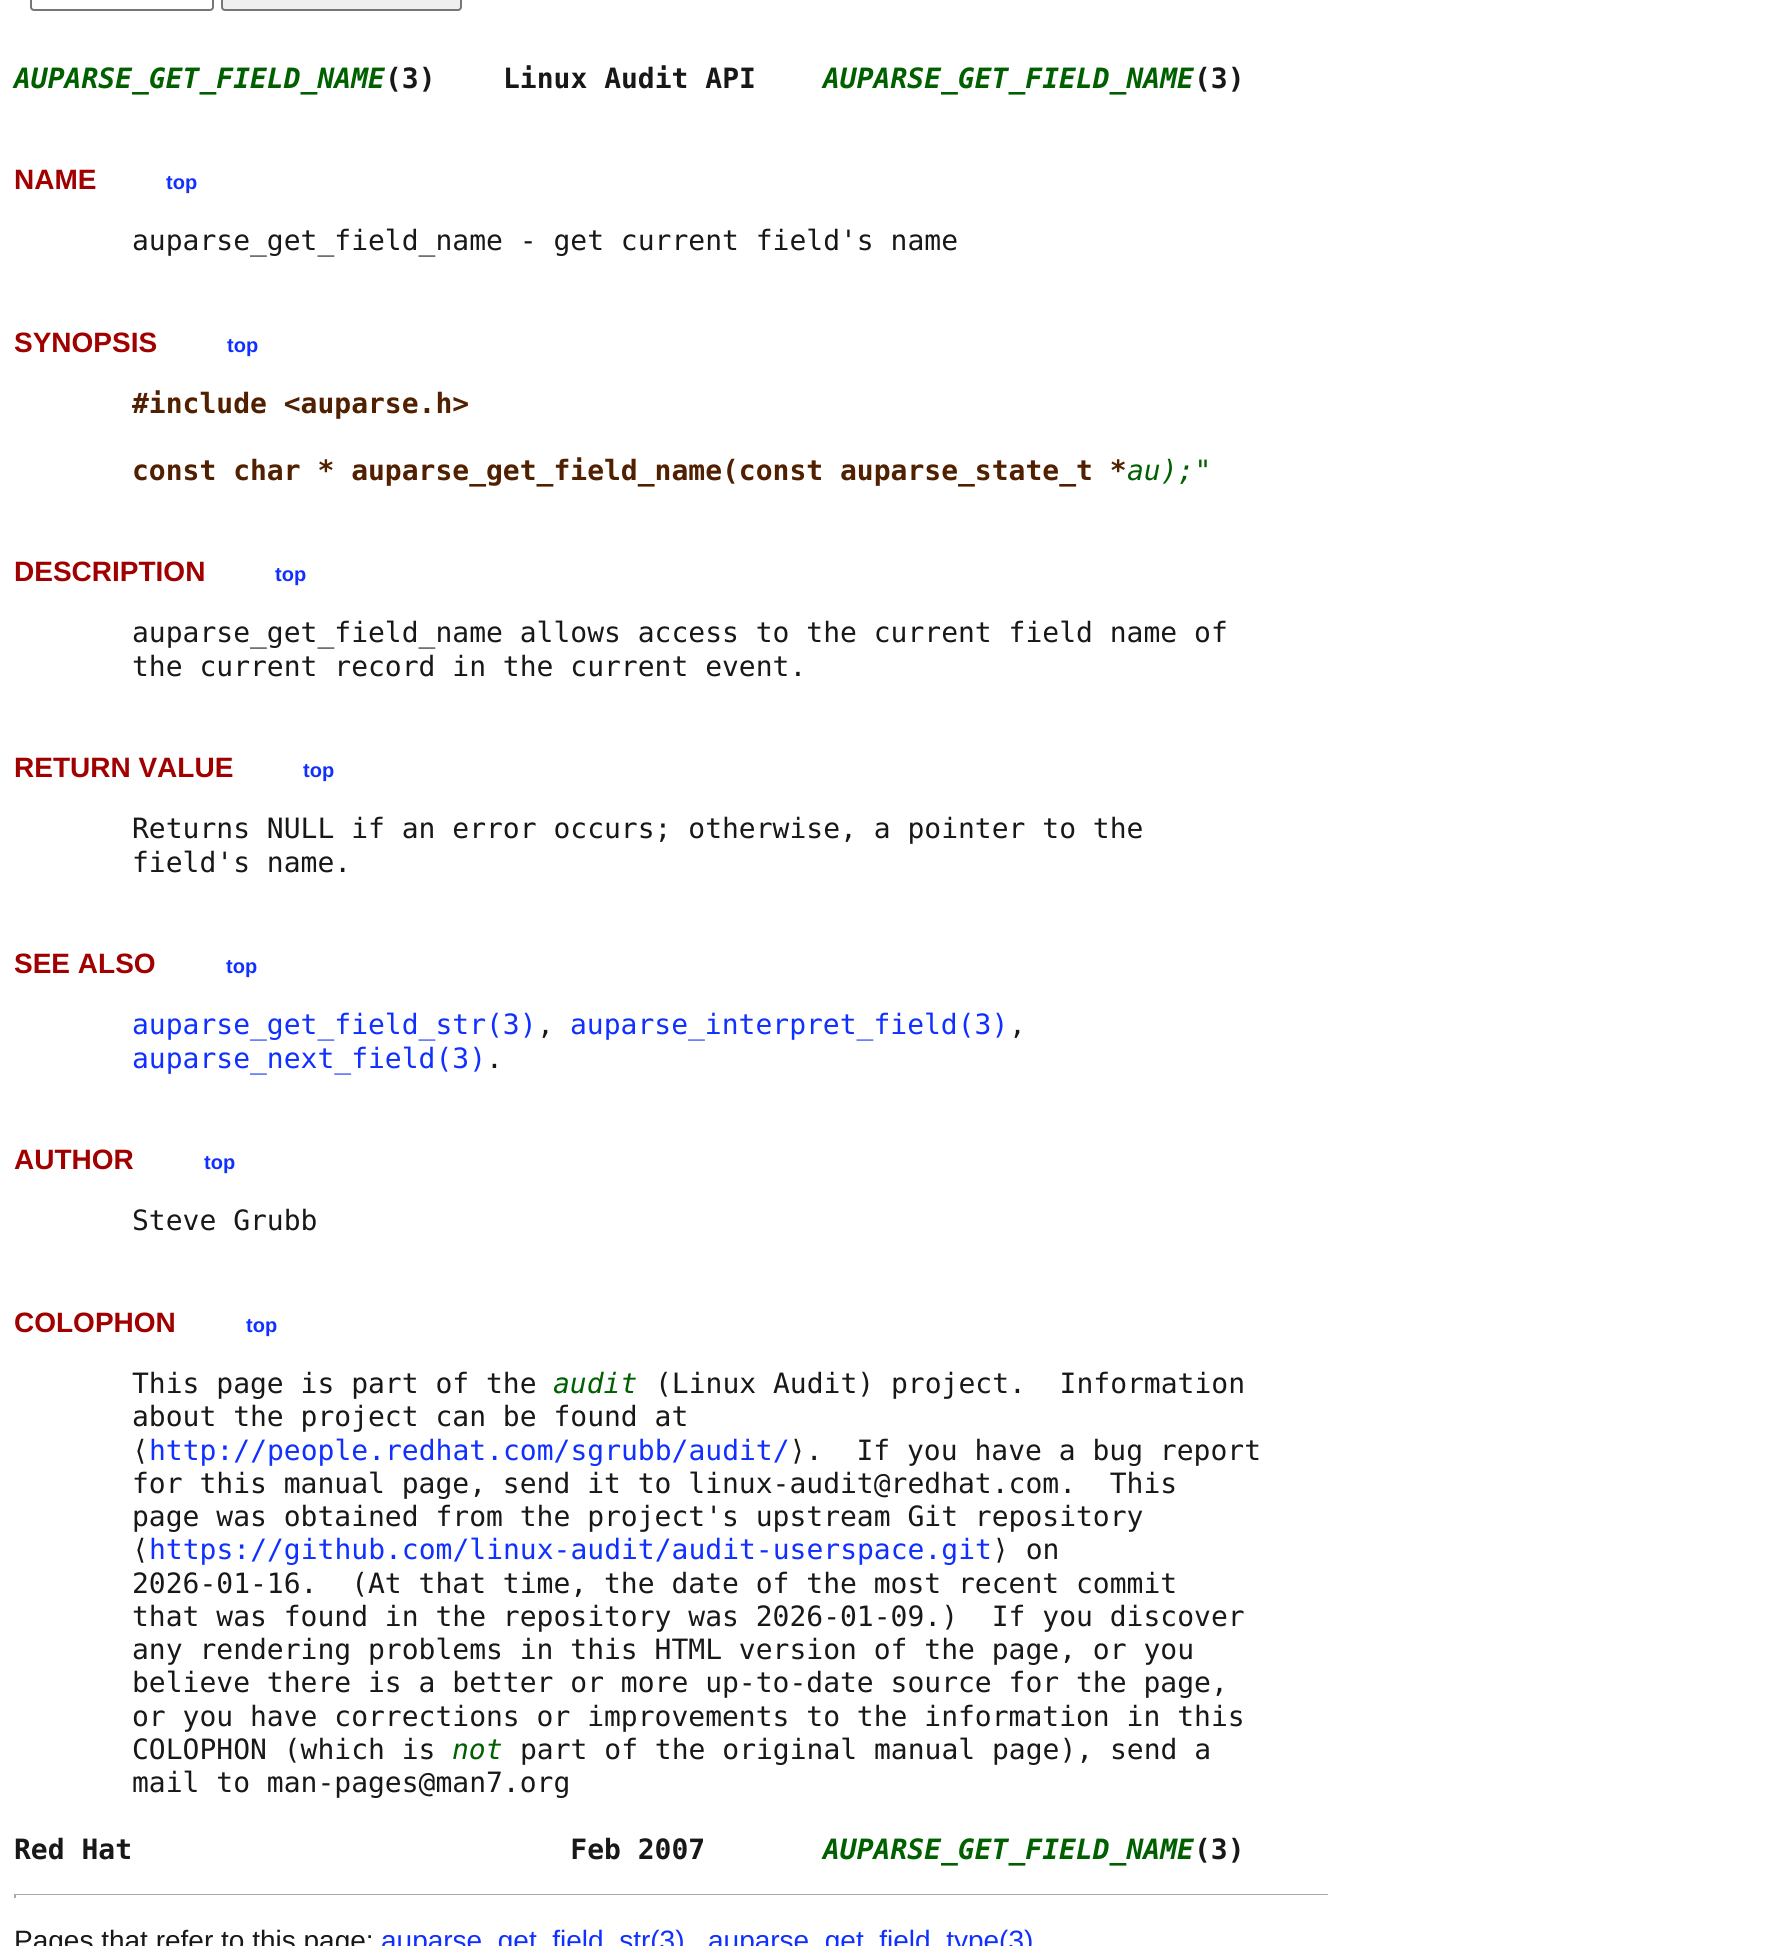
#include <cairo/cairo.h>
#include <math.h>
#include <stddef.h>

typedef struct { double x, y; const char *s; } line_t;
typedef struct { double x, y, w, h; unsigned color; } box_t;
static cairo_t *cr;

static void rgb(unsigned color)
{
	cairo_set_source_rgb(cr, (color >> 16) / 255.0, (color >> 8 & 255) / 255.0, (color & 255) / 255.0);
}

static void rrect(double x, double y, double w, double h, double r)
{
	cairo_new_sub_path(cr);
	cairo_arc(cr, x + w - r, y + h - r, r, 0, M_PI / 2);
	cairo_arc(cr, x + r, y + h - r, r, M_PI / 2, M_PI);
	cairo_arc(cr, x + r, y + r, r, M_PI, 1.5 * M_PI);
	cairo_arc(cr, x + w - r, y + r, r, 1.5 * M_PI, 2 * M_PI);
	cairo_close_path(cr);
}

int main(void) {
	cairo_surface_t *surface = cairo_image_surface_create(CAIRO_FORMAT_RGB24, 1768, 1946);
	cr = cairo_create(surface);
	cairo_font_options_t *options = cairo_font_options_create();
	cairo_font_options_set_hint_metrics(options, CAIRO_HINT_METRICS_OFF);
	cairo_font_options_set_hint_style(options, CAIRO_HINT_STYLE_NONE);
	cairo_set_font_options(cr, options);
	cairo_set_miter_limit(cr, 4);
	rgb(0xffffff);
	cairo_paint(cr);
	rrect(31, -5, 182, 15, 3);
	rgb(0x767676);
	cairo_stroke(cr);
	rgb(0xefefef);
	rrect(222, -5, 239, 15, 3);
	cairo_fill_preserve(cr);
	rgb(0x767676);
	cairo_stroke(cr);
	{
		static const box_t items[] = {
			{14, 1894, 1316, 1, 0xaaaaaa},
			{1328, 1894, 2, 4, 0xffffff},
			{14, 1894, 2, 4, 0xaaaaaa},
		};
		for (size_t i = 0; i < sizeof items / sizeof *items; i++) {
			rgb(items[i].color);
			cairo_rectangle(cr, items[i].x, items[i].y, items[i].w, items[i].h);
			cairo_fill(cr);
		}
	}
	cairo_select_font_face(cr, "DejaVu Sans Mono", CAIRO_FONT_SLANT_ITALIC, CAIRO_FONT_WEIGHT_BOLD);
	cairo_set_font_size(cr, 28);
	rgb(0x006000);
	cairo_move_to(cr, 14, 88);
	cairo_show_text(cr, "AUPARSE_GET_FIELD_NAME");
	cairo_select_font_face(cr, "DejaVu Sans Mono", CAIRO_FONT_SLANT_NORMAL, CAIRO_FONT_WEIGHT_BOLD);
	rgb(0x181818);
	cairo_move_to(cr, 385, 88);
	cairo_show_text(cr, "(3)    Linux Audit API");
	cairo_select_font_face(cr, "DejaVu Sans Mono", CAIRO_FONT_SLANT_ITALIC, CAIRO_FONT_WEIGHT_BOLD);
	rgb(0x006000);
	cairo_move_to(cr, 823, 88);
	cairo_show_text(cr, "AUPARSE_GET_FIELD_NAME");
	cairo_select_font_face(cr, "DejaVu Sans Mono", CAIRO_FONT_SLANT_NORMAL, CAIRO_FONT_WEIGHT_BOLD);
	rgb(0x181818);
	cairo_move_to(cr, 1194, 88);
	cairo_show_text(cr, "(3)");
	cairo_select_font_face(cr, "Liberation Sans", CAIRO_FONT_SLANT_NORMAL, CAIRO_FONT_WEIGHT_BOLD);
	rgb(0xa00000);
	cairo_move_to(cr, 14, 189);
	cairo_show_text(cr, "NAME");
	cairo_set_font_size(cr, 20);
	rgb(0x1030ff);
	cairo_move_to(cr, 166, 189);
	cairo_show_text(cr, "top");
	cairo_select_font_face(cr, "DejaVu Sans Mono", CAIRO_FONT_SLANT_NORMAL, CAIRO_FONT_WEIGHT_NORMAL);
	cairo_set_font_size(cr, 28);
	rgb(0x181818);
	cairo_move_to(cr, 132, 250);
	cairo_show_text(cr, "auparse_get_field_name - get current field's name");
	cairo_select_font_face(cr, "Liberation Sans", CAIRO_FONT_SLANT_NORMAL, CAIRO_FONT_WEIGHT_BOLD);
	rgb(0xa00000);
	cairo_move_to(cr, 14, 352);
	cairo_show_text(cr, "SYNOPSIS");
	cairo_set_font_size(cr, 20);
	rgb(0x1030ff);
	cairo_move_to(cr, 227, 352);
	cairo_show_text(cr, "top");
	cairo_select_font_face(cr, "DejaVu Sans Mono", CAIRO_FONT_SLANT_NORMAL, CAIRO_FONT_WEIGHT_BOLD);
	cairo_set_font_size(cr, 28);
	rgb(0x502000);
	cairo_move_to(cr, 132, 413);
	cairo_show_text(cr, "#include <auparse.h>");
	cairo_move_to(cr, 132, 480);
	cairo_show_text(cr, "const char * auparse_get_field_name(const auparse_state_t *");
	cairo_select_font_face(cr, "DejaVu Sans Mono", CAIRO_FONT_SLANT_ITALIC, CAIRO_FONT_WEIGHT_NORMAL);
	rgb(0x006000);
	cairo_move_to(cr, 1127, 480);
	cairo_show_text(cr, "au);\"");
	cairo_select_font_face(cr, "Liberation Sans", CAIRO_FONT_SLANT_NORMAL, CAIRO_FONT_WEIGHT_BOLD);
	rgb(0xa00000);
	cairo_move_to(cr, 14, 581);
	cairo_show_text(cr, "DESCRIPTION");
	cairo_set_font_size(cr, 20);
	rgb(0x1030ff);
	cairo_move_to(cr, 275, 581);
	cairo_show_text(cr, "top");
	cairo_select_font_face(cr, "DejaVu Sans Mono", CAIRO_FONT_SLANT_NORMAL, CAIRO_FONT_WEIGHT_NORMAL);
	cairo_set_font_size(cr, 28);
	rgb(0x181818);
	cairo_move_to(cr, 132, 642);
	cairo_show_text(cr, "auparse_get_field_name allows access to the current field name of");
	cairo_move_to(cr, 132, 676);
	cairo_show_text(cr, "the current record in the current event.");
	cairo_select_font_face(cr, "Liberation Sans", CAIRO_FONT_SLANT_NORMAL, CAIRO_FONT_WEIGHT_BOLD);
	rgb(0xa00000);
	cairo_move_to(cr, 14, 777);
	cairo_show_text(cr, "RETURN VALUE");
	cairo_set_font_size(cr, 20);
	rgb(0x1030ff);
	cairo_move_to(cr, 303, 777);
	cairo_show_text(cr, "top");
	cairo_select_font_face(cr, "DejaVu Sans Mono", CAIRO_FONT_SLANT_NORMAL, CAIRO_FONT_WEIGHT_NORMAL);
	cairo_set_font_size(cr, 28);
	rgb(0x181818);
	cairo_move_to(cr, 132, 838);
	cairo_show_text(cr, "Returns NULL if an error occurs; otherwise, a pointer to the");
	cairo_move_to(cr, 132, 872);
	cairo_show_text(cr, "field's name.");
	cairo_select_font_face(cr, "Liberation Sans", CAIRO_FONT_SLANT_NORMAL, CAIRO_FONT_WEIGHT_BOLD);
	rgb(0xa00000);
	cairo_move_to(cr, 14, 973);
	cairo_show_text(cr, "SEE ALSO");
	cairo_set_font_size(cr, 20);
	rgb(0x1030ff);
	cairo_move_to(cr, 226, 973);
	cairo_show_text(cr, "top");
	cairo_select_font_face(cr, "DejaVu Sans Mono", CAIRO_FONT_SLANT_NORMAL, CAIRO_FONT_WEIGHT_NORMAL);
	cairo_set_font_size(cr, 28);
	cairo_move_to(cr, 132, 1034);
	cairo_show_text(cr, "auparse_get_field_str(3)");
	rgb(0x181818);
	cairo_move_to(cr, 537, 1034);
	cairo_show_text(cr, ",");
	rgb(0x1030ff);
	cairo_move_to(cr, 570, 1034);
	cairo_show_text(cr, "auparse_interpret_field(3)");
	rgb(0x181818);
	cairo_move_to(cr, 1009, 1034);
	cairo_show_text(cr, ",");
	rgb(0x1030ff);
	cairo_move_to(cr, 132, 1068);
	cairo_show_text(cr, "auparse_next_field(3)");
	rgb(0x181818);
	cairo_move_to(cr, 486, 1068);
	cairo_show_text(cr, ".");
	cairo_select_font_face(cr, "Liberation Sans", CAIRO_FONT_SLANT_NORMAL, CAIRO_FONT_WEIGHT_BOLD);
	rgb(0xa00000);
	cairo_move_to(cr, 14, 1169);
	cairo_show_text(cr, "AUTHOR");
	cairo_set_font_size(cr, 20);
	rgb(0x1030ff);
	cairo_move_to(cr, 204, 1169);
	cairo_show_text(cr, "top");
	cairo_select_font_face(cr, "DejaVu Sans Mono", CAIRO_FONT_SLANT_NORMAL, CAIRO_FONT_WEIGHT_NORMAL);
	cairo_set_font_size(cr, 28);
	rgb(0x181818);
	cairo_move_to(cr, 132, 1230);
	cairo_show_text(cr, "Steve Grubb");
	cairo_select_font_face(cr, "Liberation Sans", CAIRO_FONT_SLANT_NORMAL, CAIRO_FONT_WEIGHT_BOLD);
	rgb(0xa00000);
	cairo_move_to(cr, 14, 1332);
	cairo_show_text(cr, "COLOPHON");
	cairo_set_font_size(cr, 20);
	rgb(0x1030ff);
	cairo_move_to(cr, 246, 1332);
	cairo_show_text(cr, "top");
	cairo_select_font_face(cr, "DejaVu Sans Mono", CAIRO_FONT_SLANT_NORMAL, CAIRO_FONT_WEIGHT_NORMAL);
	cairo_set_font_size(cr, 28);
	rgb(0x181818);
	cairo_move_to(cr, 132, 1393);
	cairo_show_text(cr, "This page is part of the");
	cairo_select_font_face(cr, "DejaVu Sans Mono", CAIRO_FONT_SLANT_ITALIC, CAIRO_FONT_WEIGHT_NORMAL);
	rgb(0x006000);
	cairo_move_to(cr, 553, 1393);
	cairo_show_text(cr, "audit");
	cairo_select_font_face(cr, "DejaVu Sans Mono", CAIRO_FONT_SLANT_NORMAL, CAIRO_FONT_WEIGHT_NORMAL);
	rgb(0x181818);
	{
		static const line_t items[] = {
			{655, 1393, "(Linux Audit) project.  Information"},
			{132, 1426, "about the project can be found at"},
			{132, 1460, "⟨"},
		};
		for (size_t i = 0; i < sizeof items / sizeof *items; i++) {
			cairo_move_to(cr, items[i].x, items[i].y);
			cairo_show_text(cr, items[i].s);
		}
	}
	rgb(0x1030ff);
	cairo_move_to(cr, 149, 1460);
	cairo_show_text(cr, "http://people.redhat.com/sgrubb/audit/");
	rgb(0x181818);
	{
		static const line_t items[] = {
			{789, 1460, "⟩.  If you have a bug report"},
			{132, 1493, "for this manual page, send it to linux-audit@redhat.com.  This"},
			{132, 1526, "page was obtained from the project's upstream Git repository"},
			{132, 1559, "⟨"},
		};
		for (size_t i = 0; i < sizeof items / sizeof *items; i++) {
			cairo_move_to(cr, items[i].x, items[i].y);
			cairo_show_text(cr, items[i].s);
		}
	}
	rgb(0x1030ff);
	cairo_move_to(cr, 149, 1559);
	cairo_show_text(cr, "https://github.com/linux-audit/audit-userspace.git");
	rgb(0x181818);
	{
		static const line_t items[] = {
			{992, 1559, "⟩ on"},
			{132, 1593, "2026-01-16.  (At that time, the date of the most recent commit"},
			{132, 1626, "that was found in the repository was 2026-01-09.)  If you discover"},
			{132, 1659, "any rendering problems in this HTML version of the page, or you"},
			{132, 1692, "believe there is a better or more up-to-date source for the page,"},
			{132, 1726, "or you have corrections or improvements to the information in this"},
			{132, 1759, "COLOPHON (which is"},
		};
		for (size_t i = 0; i < sizeof items / sizeof *items; i++) {
			cairo_move_to(cr, items[i].x, items[i].y);
			cairo_show_text(cr, items[i].s);
		}
	}
	cairo_select_font_face(cr, "DejaVu Sans Mono", CAIRO_FONT_SLANT_ITALIC, CAIRO_FONT_WEIGHT_NORMAL);
	rgb(0x006000);
	cairo_move_to(cr, 452, 1759);
	cairo_show_text(cr, "not");
	cairo_select_font_face(cr, "DejaVu Sans Mono", CAIRO_FONT_SLANT_NORMAL, CAIRO_FONT_WEIGHT_NORMAL);
	rgb(0x181818);
	cairo_move_to(cr, 520, 1759);
	cairo_show_text(cr, "part of the original manual page), send a");
	cairo_move_to(cr, 132, 1792);
	cairo_show_text(cr, "mail to man-pages@man7.org");
	cairo_select_font_face(cr, "DejaVu Sans Mono", CAIRO_FONT_SLANT_NORMAL, CAIRO_FONT_WEIGHT_BOLD);
	cairo_move_to(cr, 14, 1859);
	cairo_show_text(cr, "Red Hat                          Feb 2007");
	cairo_select_font_face(cr, "DejaVu Sans Mono", CAIRO_FONT_SLANT_ITALIC, CAIRO_FONT_WEIGHT_BOLD);
	rgb(0x006000);
	cairo_move_to(cr, 823, 1859);
	cairo_show_text(cr, "AUPARSE_GET_FIELD_NAME");
	cairo_select_font_face(cr, "DejaVu Sans Mono", CAIRO_FONT_SLANT_NORMAL, CAIRO_FONT_WEIGHT_BOLD);
	rgb(0x181818);
	cairo_move_to(cr, 1194, 1859);
	cairo_show_text(cr, "(3)");
	cairo_select_font_face(cr, "Liberation Sans", CAIRO_FONT_SLANT_NORMAL, CAIRO_FONT_WEIGHT_NORMAL);
	cairo_move_to(cr, 14, 1950);
	cairo_show_text(cr, "Pages that refer to this page:");
	rgb(0x1030ff);
	cairo_move_to(cr, 381, 1950);
	cairo_show_text(cr, "auparse_get_field_str(3)");
	cairo_move_to(cr, 708, 1950);
	cairo_show_text(cr, "auparse_get_field_type(3)");
	cairo_surface_write_to_png(surface, "page.png");
	cairo_font_options_destroy(options);
	cairo_destroy(cr);
	cairo_surface_destroy(surface);
	return 0;
}
